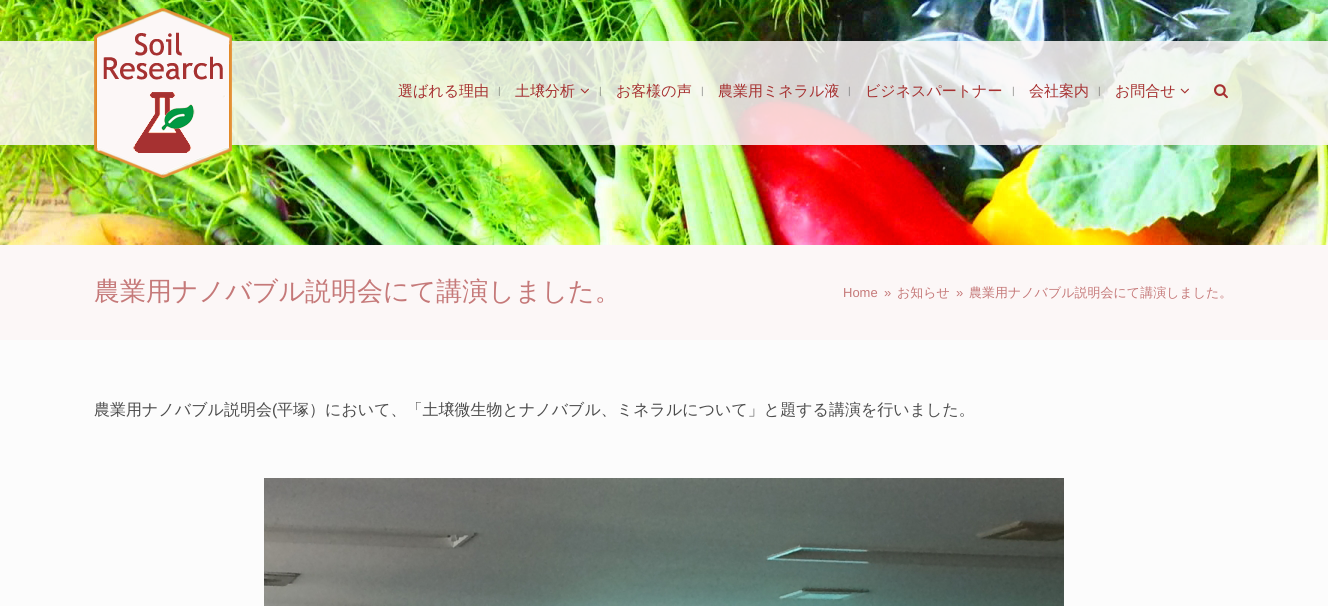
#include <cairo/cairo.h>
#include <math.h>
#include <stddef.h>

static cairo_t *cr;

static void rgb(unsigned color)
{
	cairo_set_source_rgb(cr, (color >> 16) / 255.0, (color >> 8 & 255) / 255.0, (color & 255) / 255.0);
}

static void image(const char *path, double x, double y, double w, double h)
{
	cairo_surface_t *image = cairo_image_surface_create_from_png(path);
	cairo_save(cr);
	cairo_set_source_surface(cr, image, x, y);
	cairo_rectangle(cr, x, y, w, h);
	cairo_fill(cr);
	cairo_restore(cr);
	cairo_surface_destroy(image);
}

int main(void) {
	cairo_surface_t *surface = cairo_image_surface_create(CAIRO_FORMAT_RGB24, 1328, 606);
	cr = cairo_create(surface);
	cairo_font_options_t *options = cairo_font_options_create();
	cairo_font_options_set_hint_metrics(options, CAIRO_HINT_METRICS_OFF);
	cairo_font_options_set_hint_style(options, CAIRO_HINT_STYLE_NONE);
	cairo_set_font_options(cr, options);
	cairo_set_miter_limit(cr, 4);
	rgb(0xfcfcfc);
	cairo_paint(cr);
	image("img/1.png", 0, 0, 1328, 245);
	cairo_set_source_rgba(cr, 0.988, 0.969, 0.969, 0.85);
	cairo_rectangle(cr, 0, 41, 1328, 104);
	cairo_fill(cr);
	image("img/2.png", 94, 8, 138, 170);
	image("img/3.png", 580, 88, 9, 6);
	image("img/4.png", 1180, 88, 9, 6);
	image("img/5.png", 1214, 84, 14, 15);
	rgb(0xfcf7f7);
	cairo_rectangle(cr, 0, 245, 1328, 95);
	cairo_fill(cr);
	image("img/6.png", 264, 478, 800, 128);
	cairo_select_font_face(cr, "WenQuanYi Zen Hei Medium", CAIRO_FONT_SLANT_NORMAL, CAIRO_FONT_WEIGHT_NORMAL);
	cairo_set_font_size(cr, 15);
	rgb(0xa63131);
	cairo_move_to(cr, 398, 96);
	cairo_show_text(cr, "選ばれる理由");
	cairo_select_font_face(cr, "Liberation Sans", CAIRO_FONT_SLANT_NORMAL, CAIRO_FONT_WEIGHT_NORMAL);
	cairo_set_font_size(cr, 10);
	rgb(0x888c83);
	cairo_move_to(cr, 498, 94);
	cairo_show_text(cr, "|");
	cairo_select_font_face(cr, "WenQuanYi Zen Hei Medium", CAIRO_FONT_SLANT_NORMAL, CAIRO_FONT_WEIGHT_NORMAL);
	cairo_set_font_size(cr, 15);
	rgb(0xa63131);
	cairo_move_to(cr, 515, 96);
	cairo_show_text(cr, "土壌分析");
	cairo_select_font_face(cr, "Liberation Sans", CAIRO_FONT_SLANT_NORMAL, CAIRO_FONT_WEIGHT_NORMAL);
	cairo_set_font_size(cr, 10);
	rgb(0x888c83);
	cairo_move_to(cr, 599, 94);
	cairo_show_text(cr, "|");
	cairo_select_font_face(cr, "WenQuanYi Zen Hei Medium", CAIRO_FONT_SLANT_NORMAL, CAIRO_FONT_WEIGHT_NORMAL);
	cairo_set_font_size(cr, 15);
	rgb(0xa63131);
	cairo_move_to(cr, 616, 96);
	cairo_show_text(cr, "お客様の声");
	cairo_select_font_face(cr, "Liberation Sans", CAIRO_FONT_SLANT_NORMAL, CAIRO_FONT_WEIGHT_NORMAL);
	cairo_set_font_size(cr, 10);
	rgb(0x90918d);
	cairo_move_to(cr, 701, 94);
	cairo_show_text(cr, "|");
	cairo_select_font_face(cr, "WenQuanYi Zen Hei Medium", CAIRO_FONT_SLANT_NORMAL, CAIRO_FONT_WEIGHT_NORMAL);
	cairo_set_font_size(cr, 15);
	rgb(0xa63131);
	cairo_move_to(cr, 718, 96);
	cairo_show_text(cr, "農業用ミネラル液");
	cairo_select_font_face(cr, "Liberation Sans", CAIRO_FONT_SLANT_NORMAL, CAIRO_FONT_WEIGHT_NORMAL);
	cairo_set_font_size(cr, 10);
	rgb(0x848383);
	cairo_move_to(cr, 848, 94);
	cairo_show_text(cr, "|");
	cairo_select_font_face(cr, "WenQuanYi Zen Hei Medium", CAIRO_FONT_SLANT_NORMAL, CAIRO_FONT_WEIGHT_NORMAL);
	cairo_set_font_size(cr, 15);
	rgb(0xa63131);
	cairo_move_to(cr, 865, 96);
	cairo_show_text(cr, "ビジネスパートナー");
	cairo_select_font_face(cr, "Liberation Sans", CAIRO_FONT_SLANT_NORMAL, CAIRO_FONT_WEIGHT_NORMAL);
	cairo_set_font_size(cr, 10);
	rgb(0x90918d);
	cairo_move_to(cr, 1012, 94);
	cairo_show_text(cr, "|");
	cairo_select_font_face(cr, "WenQuanYi Zen Hei Medium", CAIRO_FONT_SLANT_NORMAL, CAIRO_FONT_WEIGHT_NORMAL);
	cairo_set_font_size(cr, 15);
	rgb(0xa63131);
	cairo_move_to(cr, 1029, 96);
	cairo_show_text(cr, "会社案内");
	cairo_select_font_face(cr, "Liberation Sans", CAIRO_FONT_SLANT_NORMAL, CAIRO_FONT_WEIGHT_NORMAL);
	cairo_set_font_size(cr, 10);
	rgb(0x848383);
	cairo_move_to(cr, 1098, 94);
	cairo_show_text(cr, "|");
	cairo_select_font_face(cr, "WenQuanYi Zen Hei Medium", CAIRO_FONT_SLANT_NORMAL, CAIRO_FONT_WEIGHT_NORMAL);
	cairo_set_font_size(cr, 15);
	rgb(0xa63131);
	cairo_move_to(cr, 1115, 96);
	cairo_show_text(cr, "お問合せ");
	cairo_set_font_size(cr, 26);
	rgb(0xc57979);
	cairo_move_to(cr, 94, 300);
	cairo_show_text(cr, "農業用ナノバブル説明会にて講演しました。");
	cairo_select_font_face(cr, "Liberation Sans", CAIRO_FONT_SLANT_NORMAL, CAIRO_FONT_WEIGHT_NORMAL);
	cairo_set_font_size(cr, 13);
	cairo_move_to(cr, 843, 297);
	cairo_show_text(cr, "Home");
	cairo_move_to(cr, 884, 297);
	cairo_show_text(cr, "»");
	cairo_select_font_face(cr, "WenQuanYi Zen Hei Medium", CAIRO_FONT_SLANT_NORMAL, CAIRO_FONT_WEIGHT_NORMAL);
	cairo_move_to(cr, 897, 297);
	cairo_show_text(cr, "お知らせ");
	cairo_select_font_face(cr, "Liberation Sans", CAIRO_FONT_SLANT_NORMAL, CAIRO_FONT_WEIGHT_NORMAL);
	cairo_move_to(cr, 956, 297);
	cairo_show_text(cr, "»");
	cairo_select_font_face(cr, "WenQuanYi Zen Hei Medium", CAIRO_FONT_SLANT_NORMAL, CAIRO_FONT_WEIGHT_NORMAL);
	cairo_move_to(cr, 969, 297);
	cairo_show_text(cr, "農業用ナノバブル説明会にて講演しました。");
	cairo_set_font_size(cr, 16);
	rgb(0x4c4c4c);
	cairo_move_to(cr, 94, 415);
	cairo_show_text(cr, "農業用ナノバブル説明会");
	cairo_select_font_face(cr, "Liberation Sans", CAIRO_FONT_SLANT_NORMAL, CAIRO_FONT_WEIGHT_NORMAL);
	cairo_move_to(cr, 272, 415);
	cairo_show_text(cr, "(");
	cairo_select_font_face(cr, "WenQuanYi Zen Hei Medium", CAIRO_FONT_SLANT_NORMAL, CAIRO_FONT_WEIGHT_NORMAL);
	cairo_move_to(cr, 277, 415);
	cairo_show_text(cr, "平塚）において、「土壌微生物とナノバブル、ミネラルについて」と題する講演を行いました。");
	cairo_surface_write_to_png(surface, "page.png");
	cairo_font_options_destroy(options);
	cairo_destroy(cr);
	cairo_surface_destroy(surface);
	return 0;
}
